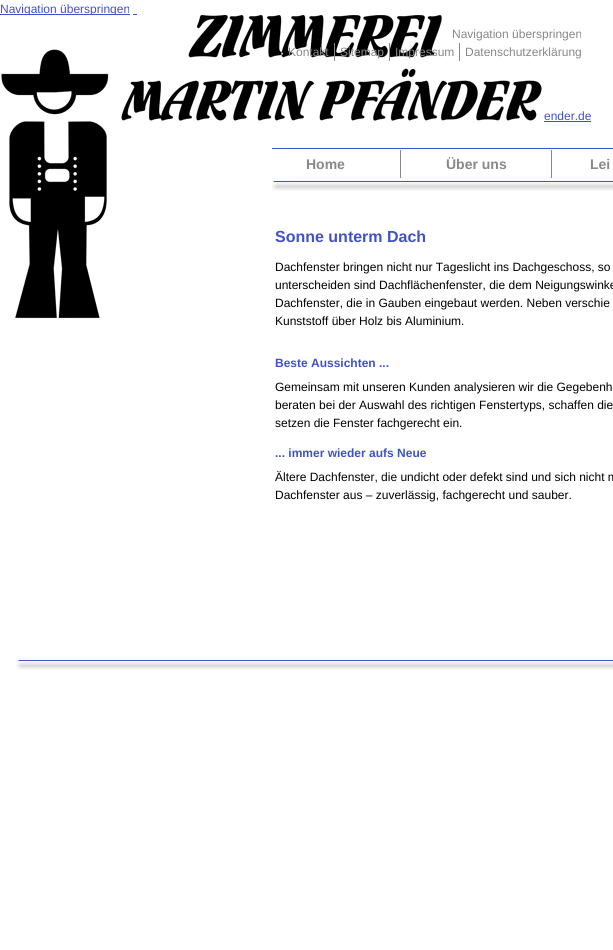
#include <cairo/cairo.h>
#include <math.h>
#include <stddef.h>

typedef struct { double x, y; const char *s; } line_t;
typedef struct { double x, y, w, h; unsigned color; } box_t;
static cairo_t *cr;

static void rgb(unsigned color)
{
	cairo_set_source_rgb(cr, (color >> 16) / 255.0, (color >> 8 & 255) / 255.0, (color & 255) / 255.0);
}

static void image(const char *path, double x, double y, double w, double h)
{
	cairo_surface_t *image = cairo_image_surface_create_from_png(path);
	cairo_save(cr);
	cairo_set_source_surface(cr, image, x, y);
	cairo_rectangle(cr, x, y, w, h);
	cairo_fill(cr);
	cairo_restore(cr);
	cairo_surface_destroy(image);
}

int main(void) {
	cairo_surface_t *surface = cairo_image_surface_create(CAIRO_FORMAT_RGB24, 613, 950);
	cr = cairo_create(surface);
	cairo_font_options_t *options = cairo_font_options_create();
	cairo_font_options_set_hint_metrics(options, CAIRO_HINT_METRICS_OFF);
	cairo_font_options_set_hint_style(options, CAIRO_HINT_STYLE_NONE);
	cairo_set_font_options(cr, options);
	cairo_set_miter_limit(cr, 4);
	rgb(0xffffff);
	cairo_paint(cr);
	image("img/1.png", 272, 148, 341, 43);
	{
		static const box_t items[] = {
			{0, 14, 130, 1, 0x3f52c8},
			{133, 14, 4, 1, 0x3f52c8},
			{551, 150, 1, 28, 0x888888},
			{552, 150, 61, 28, 0xffffff},
			{544, 121, 47, 1, 0x3f52c8},
		};
		for (size_t i = 0; i < sizeof items / sizeof *items; i++) {
			rgb(items[i].color);
			cairo_rectangle(cr, items[i].x, items[i].y, items[i].w, items[i].h);
			cairo_fill(cr);
		}
	}
	image("img/3.png", 16, 656, 597, 14);
	cairo_select_font_face(cr, "Liberation Sans", CAIRO_FONT_SLANT_NORMAL, CAIRO_FONT_WEIGHT_NORMAL);
	cairo_set_font_size(cr, 12);
	cairo_move_to(cr, 0, 13);
	cairo_show_text(cr, "Navigation überspringen");
	cairo_select_font_face(cr, "Liberation Sans", CAIRO_FONT_SLANT_NORMAL, CAIRO_FONT_WEIGHT_BOLD);
	cairo_set_font_size(cr, 14);
	rgb(0x888888);
	cairo_move_to(cr, 590, 169);
	cairo_show_text(cr, "Lei");
	cairo_select_font_face(cr, "Liberation Sans", CAIRO_FONT_SLANT_NORMAL, CAIRO_FONT_WEIGHT_NORMAL);
	cairo_set_font_size(cr, 12);
	rgb(0x3f52c8);
	cairo_move_to(cr, 544, 120);
	cairo_show_text(cr, "ender.de");
	cairo_select_font_face(cr, "Liberation Sans", CAIRO_FONT_SLANT_NORMAL, CAIRO_FONT_WEIGHT_BOLD);
	cairo_set_font_size(cr, 16);
	cairo_move_to(cr, 275, 242);
	cairo_show_text(cr, "Sonne unterm Dach");
	cairo_select_font_face(cr, "Liberation Sans", CAIRO_FONT_SLANT_NORMAL, CAIRO_FONT_WEIGHT_NORMAL);
	cairo_set_font_size(cr, 12);
	rgb(0x000000);
	{
		static const line_t items[] = {
			{275, 271, "Dachfenster bringen nicht nur Tageslicht ins Dachgeschoss, so"},
			{275, 289, "unterscheiden sind Dachflächenfenster, die dem Neigungswinke"},
			{275, 307, "Dachfenster, die in Gauben eingebaut werden. Neben verschie"},
			{275, 325, "Kunststoff über Holz bis Aluminium."},
		};
		for (size_t i = 0; i < sizeof items / sizeof *items; i++) {
			cairo_move_to(cr, items[i].x, items[i].y);
			cairo_show_text(cr, items[i].s);
		}
	}
	image("img/2.png", 1, 15, 543, 304);
	rgb(0x888888);
	{
		static const line_t items[] = {
			{452, 38, "Navigation überspringen"},
			{465, 56, "Datenschutzerklärung"},
			{395, 56, "Impressum"},
		};
		for (size_t i = 0; i < sizeof items / sizeof *items; i++) {
			cairo_move_to(cr, items[i].x, items[i].y);
			cairo_show_text(cr, items[i].s);
		}
	}
	cairo_rectangle(cr, 459, 43, 1, 18);
	cairo_fill(cr);
	cairo_move_to(cr, 340, 56);
	cairo_show_text(cr, "Sitemap");
	cairo_rectangle(cr, 389, 43, 1, 18);
	cairo_fill(cr);
	cairo_move_to(cr, 288, 56);
	cairo_show_text(cr, "Kontakt");
	cairo_rectangle(cr, 334, 43, 1, 18);
	cairo_fill(cr);
	rgb(0xffffff);
	cairo_rectangle(cr, 401, 150, 150, 28);
	cairo_fill(cr);
	cairo_select_font_face(cr, "Liberation Sans", CAIRO_FONT_SLANT_NORMAL, CAIRO_FONT_WEIGHT_BOLD);
	cairo_set_font_size(cr, 14);
	rgb(0x888888);
	cairo_move_to(cr, 446, 169);
	cairo_show_text(cr, "Über uns");
	rgb(0xffffff);
	cairo_rectangle(cr, 272, 150, 128, 28);
	cairo_fill(cr);
	rgb(0x888888);
	cairo_move_to(cr, 306, 169);
	cairo_show_text(cr, "Home");
	cairo_rectangle(cr, 400, 150, 1, 28);
	cairo_fill(cr);
	cairo_set_font_size(cr, 12);
	rgb(0x3f52c8);
	cairo_move_to(cr, 275, 367);
	cairo_show_text(cr, "Beste Aussichten ...");
	cairo_select_font_face(cr, "Liberation Sans", CAIRO_FONT_SLANT_NORMAL, CAIRO_FONT_WEIGHT_NORMAL);
	rgb(0x000000);
	{
		static const line_t items[] = {
			{275, 391, "Gemeinsam mit unseren Kunden analysieren wir die Gegebenh"},
			{275, 409, "beraten bei der Auswahl des richtigen Fenstertyps, schaffen die"},
			{275, 427, "setzen die Fenster fachgerecht ein."},
		};
		for (size_t i = 0; i < sizeof items / sizeof *items; i++) {
			cairo_move_to(cr, items[i].x, items[i].y);
			cairo_show_text(cr, items[i].s);
		}
	}
	cairo_select_font_face(cr, "Liberation Sans", CAIRO_FONT_SLANT_NORMAL, CAIRO_FONT_WEIGHT_BOLD);
	rgb(0x3f52c8);
	cairo_move_to(cr, 275, 457);
	cairo_show_text(cr, "... immer wieder aufs Neue");
	cairo_select_font_face(cr, "Liberation Sans", CAIRO_FONT_SLANT_NORMAL, CAIRO_FONT_WEIGHT_NORMAL);
	rgb(0x000000);
	cairo_move_to(cr, 275, 481);
	cairo_show_text(cr, "Ältere Dachfenster, die undicht oder defekt sind und sich nicht m");
	cairo_move_to(cr, 275, 499);
	cairo_show_text(cr, "Dachfenster aus – zuverlässig, fachgerecht und sauber.");
	cairo_surface_write_to_png(surface, "page.png");
	cairo_font_options_destroy(options);
	cairo_destroy(cr);
	cairo_surface_destroy(surface);
	return 0;
}
